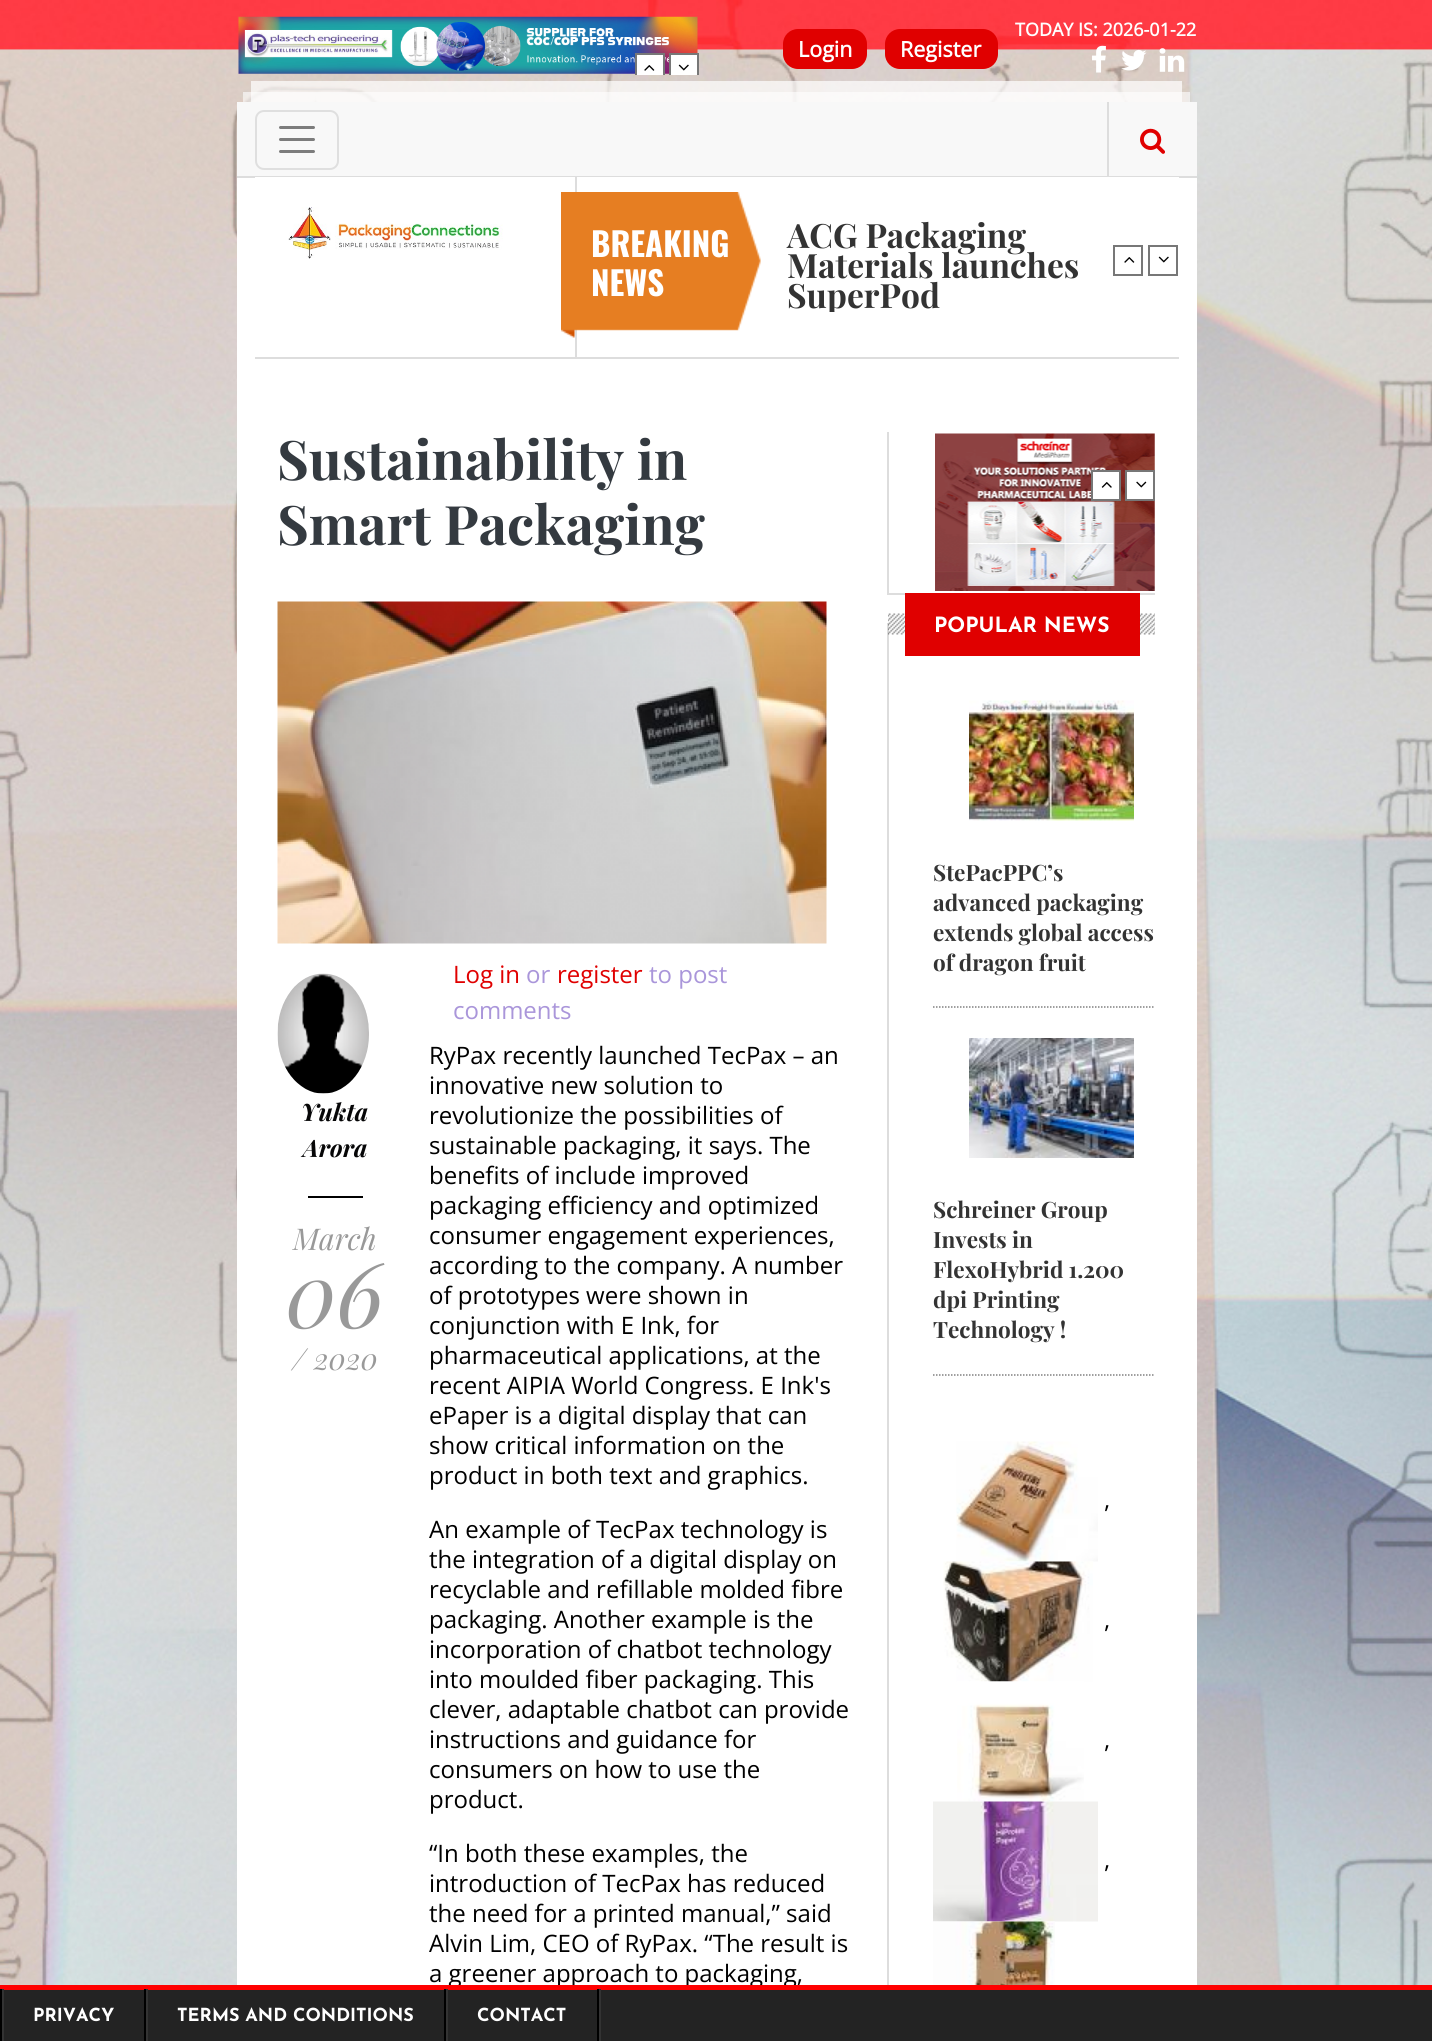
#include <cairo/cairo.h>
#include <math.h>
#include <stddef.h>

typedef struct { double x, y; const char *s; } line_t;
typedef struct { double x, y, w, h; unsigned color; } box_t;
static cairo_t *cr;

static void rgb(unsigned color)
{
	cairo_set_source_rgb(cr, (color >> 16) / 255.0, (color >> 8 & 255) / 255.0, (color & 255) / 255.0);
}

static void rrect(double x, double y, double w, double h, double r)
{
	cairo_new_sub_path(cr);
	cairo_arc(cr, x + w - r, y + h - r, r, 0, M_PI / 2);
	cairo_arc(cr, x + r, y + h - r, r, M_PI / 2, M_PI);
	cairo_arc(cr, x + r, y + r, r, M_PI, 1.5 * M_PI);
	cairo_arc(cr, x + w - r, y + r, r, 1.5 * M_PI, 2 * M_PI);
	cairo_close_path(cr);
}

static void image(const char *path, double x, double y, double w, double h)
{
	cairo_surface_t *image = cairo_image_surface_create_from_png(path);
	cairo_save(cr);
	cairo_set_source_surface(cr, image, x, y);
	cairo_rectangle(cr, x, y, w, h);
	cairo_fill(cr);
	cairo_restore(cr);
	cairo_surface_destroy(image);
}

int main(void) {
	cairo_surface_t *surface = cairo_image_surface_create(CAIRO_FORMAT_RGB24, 1432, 2041);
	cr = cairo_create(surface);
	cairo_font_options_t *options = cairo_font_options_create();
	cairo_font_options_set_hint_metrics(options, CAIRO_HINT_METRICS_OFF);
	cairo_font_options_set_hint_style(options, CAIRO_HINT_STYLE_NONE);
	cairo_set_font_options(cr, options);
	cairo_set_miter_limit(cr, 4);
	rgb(0xffffff);
	cairo_paint(cr);
	image("img/1.png", 0, 0, 1432, 1985);
	image("img/2.png", 238, 16, 460, 58);
	rgb(0xffffff);
	cairo_rectangle(cr, 637, 55, 26, 20);
	cairo_fill(cr);
	cairo_save(cr);
	cairo_rectangle(cr, 237, 15, 462, 60);
	cairo_clip(cr);
	cairo_rectangle(cr, 636, 54, 28, 29);
	rgb(0x777777);
	cairo_stroke(cr);
	cairo_restore(cr);
	image("img/3.png", 644, 65, 11, 6);
	cairo_rectangle(cr, 671, 55, 26, 20);
	cairo_fill(cr);
	cairo_save(cr);
	cairo_rectangle(cr, 237, 15, 462, 60);
	cairo_clip(cr);
	cairo_rectangle(cr, 670, 54, 28, 29);
	rgb(0x777777);
	cairo_stroke(cr);
	cairo_restore(cr);
	image("img/4.png", 678, 64, 11, 7);
	image("img/5.png", 1092, 45, 14, 28);
	image("img/6.png", 1121, 49, 26, 22);
	image("img/7.png", 1159, 48, 26, 24);
	rgb(0xe00000);
	rrect(783, 29, 84, 40, 15);
	cairo_fill(cr);
	rrect(885, 29, 113, 40, 15);
	cairo_fill(cr);
	rgb(0xffffff);
	cairo_rectangle(cr, 237, 178, 960, 1807);
	cairo_fill(cr);
	cairo_set_source_rgba(cr, 1, 1, 1, 0.6);
	cairo_rectangle(cr, 243, 92, 947, 10);
	cairo_fill(cr);
	cairo_set_source_rgba(cr, 1, 1, 1, 0.7);
	cairo_rectangle(cr, 251, 81, 931, 21);
	cairo_fill(cr);
	rgb(0xf8f8f8);
	cairo_rectangle(cr, 237, 102, 960, 74);
	cairo_fill(cr);
	rgb(0xdddddd);
	cairo_rectangle(cr, 237, 176, 960, 2);
	cairo_fill(cr);
	rrect(256, 111, 82, 58, 8);
	rgb(0xdfdfdf);
	cairo_stroke(cr);
	cairo_new_path(cr);
	cairo_move_to(cr, 280.5, 127.5);
	cairo_line_to(cr, 313.5, 127.5);
	cairo_move_to(cr, 280.5, 139.5);
	cairo_line_to(cr, 313.5, 139.5);
	cairo_move_to(cr, 280.5, 151.5);
	cairo_line_to(cr, 313.5, 151.5);
	rgb(0x7c7c7c);
	cairo_set_line_width(cr, 3);
	cairo_set_line_cap(cr, CAIRO_LINE_CAP_ROUND);
	cairo_stroke(cr);
	rgb(0xdddddd);
	cairo_rectangle(cr, 1107, 102, 2, 75);
	cairo_fill(cr);
	image("img/8.png", 1140, 128, 25, 26);
	rgb(0xffffff);
	cairo_rectangle(cr, 255, 177, 924, 1);
	cairo_fill(cr);
	rgb(0xdddddd);
	cairo_rectangle(cr, 255, 357, 924, 2);
	cairo_fill(cr);
	image("img/9.png", 288, 207, 215, 52);
	cairo_rectangle(cr, 575, 177, 2, 180);
	cairo_fill(cr);
	image("img/10.png", 561, 192, 200, 146);
	cairo_rectangle(cr, 1114, 246, 28, 29);
	rgb(0x777777);
	cairo_set_line_width(cr, 2);
	cairo_set_line_cap(cr, CAIRO_LINE_CAP_BUTT);
	cairo_stroke(cr);
	image("img/3.png", 1124, 257, 11, 6);
	cairo_rectangle(cr, 1149, 246, 28, 29);
	cairo_stroke(cr);
	image("img/4.png", 1158, 256, 11, 7);
	image("img/11.png", 277, 601, 550, 343);
	image("img/12.png", 277, 973, 92, 121);
	{
		static const box_t items[] = {
			{308, 1196, 55, 2, 0x000000},
			{887, 593, 268, 2, 0xdddddd},
			{887, 432, 2, 162, 0xdddddd},
		};
		for (size_t i = 0; i < sizeof items / sizeof *items; i++) {
			rgb(items[i].color);
			cairo_rectangle(cr, items[i].x, items[i].y, items[i].w, items[i].h);
			cairo_fill(cr);
		}
	}
	image("img/13.png", 935, 433, 220, 158);
	rgb(0xffffff);
	cairo_rectangle(cr, 1092, 471, 28, 29);
	cairo_fill_preserve(cr);
	rgb(0x777777);
	cairo_stroke(cr);
	image("img/14.png", 1101, 482, 11, 6);
	rgb(0xffffff);
	cairo_rectangle(cr, 1126, 471, 28, 29);
	cairo_fill_preserve(cr);
	rgb(0x777777);
	cairo_stroke(cr);
	image("img/15.png", 1136, 481, 11, 7);
	rgb(0xdddddd);
	cairo_rectangle(cr, 887, 623, 2, 1362);
	cairo_fill(cr);
	image("img/16.png", 888, 613, 267, 22);
	rgb(0xe00000);
	cairo_rectangle(cr, 905, 593, 235, 63);
	cairo_fill(cr);
	cairo_new_path(cr);
	cairo_move_to(cr, 933, 1007);
	cairo_line_to(cr, 1155, 1007);
	rgb(0x7f7f7f);
	cairo_set_line_width(cr, 1.5);
	cairo_set_dash(cr, (double[]){1.5, 1.5}, 2, 0);
	cairo_stroke(cr);
	image("img/17.png", 969, 700, 165, 121);
	cairo_new_path(cr);
	cairo_move_to(cr, 933, 1375);
	cairo_line_to(cr, 1155, 1375);
	cairo_stroke(cr);
	image("img/18.png", 969, 1038, 165, 120);
	image("img/19.png", 956, 1441, 142, 121);
	image("img/20.png", 943, 1561, 150, 121);
	image("img/21.png", 957, 1681, 127, 121);
	image("img/22.png", 933, 1801, 165, 121);
	image("img/23.png", 933, 1921, 122, 64);
	rgb(0x232323);
	cairo_rectangle(cr, 4, 1990, 1428, 51);
	cairo_fill(cr);
	cairo_select_font_face(cr, "Open Sans", CAIRO_FONT_SLANT_NORMAL, CAIRO_FONT_WEIGHT_BOLD);
	cairo_set_font_size(cr, 18);
	rgb(0xffffff);
	cairo_move_to(cr, 1015, 36);
	cairo_show_text(cr, "TODAY IS: 2026-01-22");
	cairo_set_font_size(cr, 21.5);
	cairo_move_to(cr, 798, 57);
	cairo_show_text(cr, "Login");
	cairo_move_to(cr, 900, 57);
	cairo_show_text(cr, "Register");
	cairo_select_font_face(cr, "Oswald", CAIRO_FONT_SLANT_NORMAL, CAIRO_FONT_WEIGHT_BOLD);
	cairo_set_font_size(cr, 33);
	cairo_move_to(cr, 591, 257);
	cairo_show_text(cr, "BREAKING");
	cairo_move_to(cr, 591, 296);
	cairo_show_text(cr, "NEWS");
	cairo_select_font_face(cr, "Playfair Display", CAIRO_FONT_SLANT_NORMAL, CAIRO_FONT_WEIGHT_BOLD);
	cairo_set_font_size(cr, 33.5);
	rgb(0x333333);
	cairo_move_to(cr, 787, 248);
	cairo_show_text(cr, "ACG Packaging");
	cairo_move_to(cr, 787, 278);
	cairo_show_text(cr, "Materials launches");
	cairo_save(cr);
	cairo_rectangle(cr, 786, 207, 392, 105);
	cairo_clip(cr);
	cairo_move_to(cr, 787, 308);
	cairo_show_text(cr, "SuperPod");
	cairo_restore(cr);
	cairo_set_font_size(cr, 54.5);
	rgb(0x343a40);
	cairo_move_to(cr, 277, 480);
	cairo_show_text(cr, "Sustainability in");
	cairo_move_to(cr, 277, 545);
	cairo_show_text(cr, "Smart Packaging");
	cairo_select_font_face(cr, "Playfair Display", CAIRO_FONT_SLANT_ITALIC, CAIRO_FONT_WEIGHT_BOLD);
	cairo_set_font_size(cr, 24);
	rgb(0x060607);
	cairo_move_to(cr, 301, 1121);
	cairo_show_text(cr, "Yukta");
	cairo_move_to(cr, 303, 1157);
	cairo_show_text(cr, "Arora");
	cairo_select_font_face(cr, "Playfair Display", CAIRO_FONT_SLANT_ITALIC, CAIRO_FONT_WEIGHT_NORMAL);
	cairo_set_font_size(cr, 30);
	rgb(0x999999);
	cairo_move_to(cr, 293, 1250);
	cairo_show_text(cr, "March");
	cairo_set_font_size(cr, 90);
	cairo_move_to(cr, 286, 1328);
	cairo_show_text(cr, "06");
	cairo_set_font_size(cr, 30);
	cairo_move_to(cr, 292, 1370);
	cairo_show_text(cr, "/ 2020");
	cairo_select_font_face(cr, "Open Sans", CAIRO_FONT_SLANT_NORMAL, CAIRO_FONT_WEIGHT_NORMAL);
	cairo_set_font_size(cr, 24);
	rgb(0xe00000);
	cairo_move_to(cr, 453, 983);
	cairo_show_text(cr, "Log in");
	rgb(0xaa96da);
	cairo_move_to(cr, 526, 983);
	cairo_show_text(cr, "or");
	rgb(0xe00000);
	cairo_move_to(cr, 557, 983);
	cairo_show_text(cr, "register");
	rgb(0xaa96da);
	cairo_move_to(cr, 649, 983);
	cairo_show_text(cr, "to post");
	cairo_move_to(cr, 453, 1019);
	cairo_show_text(cr, "comments");
	rgb(0x000000);
	{
		static const line_t items[] = {
			{429, 1064, "RyPax recently launched TecPax – an"},
			{429, 1094, "innovative new solution to"},
			{429, 1124, "revolutionize the possibilities of"},
			{429, 1154, "sustainable packaging, it says. The"},
			{429, 1184, "benefits of include improved"},
			{429, 1214, "packaging efficiency and optimized"},
			{429, 1244, "consumer engagement experiences,"},
			{429, 1274, "according to the company. A number"},
			{429, 1304, "of prototypes were shown in"},
			{429, 1334, "conjunction with E Ink, for"},
			{429, 1364, "pharmaceutical applications, at the"},
			{429, 1394, "recent AIPIA World Congress. E Ink's"},
			{429, 1424, "ePaper is a digital display that can"},
			{429, 1454, "show critical information on the"},
			{429, 1484, "product in both text and graphics."},
			{429, 1538, "An example of TecPax technology is"},
			{429, 1568, "the integration of a digital display on"},
			{429, 1598, "recyclable and refillable molded fibre"},
			{429, 1628, "packaging. Another example is the"},
			{429, 1658, "incorporation of chatbot technology"},
			{429, 1688, "into moulded fiber packaging. This"},
			{429, 1718, "clever, adaptable chatbot can provide"},
			{429, 1748, "instructions and guidance for"},
			{429, 1778, "consumers on how to use the"},
			{429, 1808, "product."},
			{429, 1862, "“In both these examples, the"},
			{429, 1892, "introduction of TecPax has reduced"},
			{429, 1922, "the need for a printed manual,” said"},
			{429, 1952, "Alvin Lim, CEO of RyPax. “The result is"},
			{429, 1982, "a greener approach to packaging,"},
		};
		for (size_t i = 0; i < sizeof items / sizeof *items; i++) {
			cairo_move_to(cr, items[i].x, items[i].y);
			cairo_show_text(cr, items[i].s);
		}
	}
	cairo_select_font_face(cr, "Josefin Sans", CAIRO_FONT_SLANT_NORMAL, CAIRO_FONT_WEIGHT_BOLD);
	cairo_set_font_size(cr, 21);
	rgb(0xffffff);
	cairo_move_to(cr, 934, 632);
	cairo_show_text(cr, "POPULAR NEWS");
	cairo_select_font_face(cr, "Playfair Display", CAIRO_FONT_SLANT_NORMAL, CAIRO_FONT_WEIGHT_BOLD);
	cairo_set_font_size(cr, 22.5);
	rgb(0x333333);
	{
		static const line_t items[] = {
			{933, 881, "StePacPPC’s"},
			{933, 911, "advanced packaging"},
			{933, 941, "extends global access"},
			{933, 971, "of dragon fruit"},
			{933, 1218, "Schreiner Group"},
			{933, 1248, "Invests in"},
			{933, 1278, "FlexoHybrid 1.200"},
			{933, 1308, "dpi Printing"},
			{933, 1338, "Technology !"},
		};
		for (size_t i = 0; i < sizeof items / sizeof *items; i++) {
			cairo_move_to(cr, items[i].x, items[i].y);
			cairo_show_text(cr, items[i].s);
		}
	}
	cairo_select_font_face(cr, "Open Sans", CAIRO_FONT_SLANT_NORMAL, CAIRO_FONT_WEIGHT_NORMAL);
	cairo_set_font_size(cr, 24);
	rgb(0x000000);
	{
		static const line_t items[] = {
			{1104, 1508, ","},
			{1104, 1628, ","},
			{1104, 1748, ","},
			{1104, 1868, ","},
		};
		for (size_t i = 0; i < sizeof items / sizeof *items; i++) {
			cairo_move_to(cr, items[i].x, items[i].y);
			cairo_show_text(cr, items[i].s);
		}
	}
	{
		static const box_t items[] = {
			{0, 1985, 1432, 5, 0xff0000},
			{599, 1989, 2, 52, 0x333333},
			{0, 1989, 2, 52, 0x000000},
			{144, 1989, 2, 52, 0x000000},
			{2, 1989, 2, 52, 0x333333},
		};
		for (size_t i = 0; i < sizeof items / sizeof *items; i++) {
			rgb(items[i].color);
			cairo_rectangle(cr, items[i].x, items[i].y, items[i].w, items[i].h);
			cairo_fill(cr);
		}
	}
	cairo_select_font_face(cr, "Josefin Sans", CAIRO_FONT_SLANT_NORMAL, CAIRO_FONT_WEIGHT_BOLD);
	cairo_set_font_size(cr, 18);
	rgb(0xffffff);
	cairo_move_to(cr, 33, 2021);
	cairo_show_text(cr, "PRIVACY");
	rgb(0x000000);
	cairo_rectangle(cr, 444, 1989, 2, 52);
	cairo_fill(cr);
	rgb(0x333333);
	cairo_rectangle(cr, 146, 1989, 2, 52);
	cairo_fill(cr);
	rgb(0xffffff);
	cairo_move_to(cr, 177, 2021);
	cairo_show_text(cr, "TERMS AND CONDITIONS");
	rgb(0x000000);
	cairo_rectangle(cr, 597, 1989, 2, 52);
	cairo_fill(cr);
	rgb(0x333333);
	cairo_rectangle(cr, 446, 1989, 2, 52);
	cairo_fill(cr);
	rgb(0xffffff);
	cairo_move_to(cr, 477, 2021);
	cairo_show_text(cr, "CONTACT");
	cairo_surface_write_to_png(surface, "page.png");
	cairo_font_options_destroy(options);
	cairo_destroy(cr);
	cairo_surface_destroy(surface);
	return 0;
}
